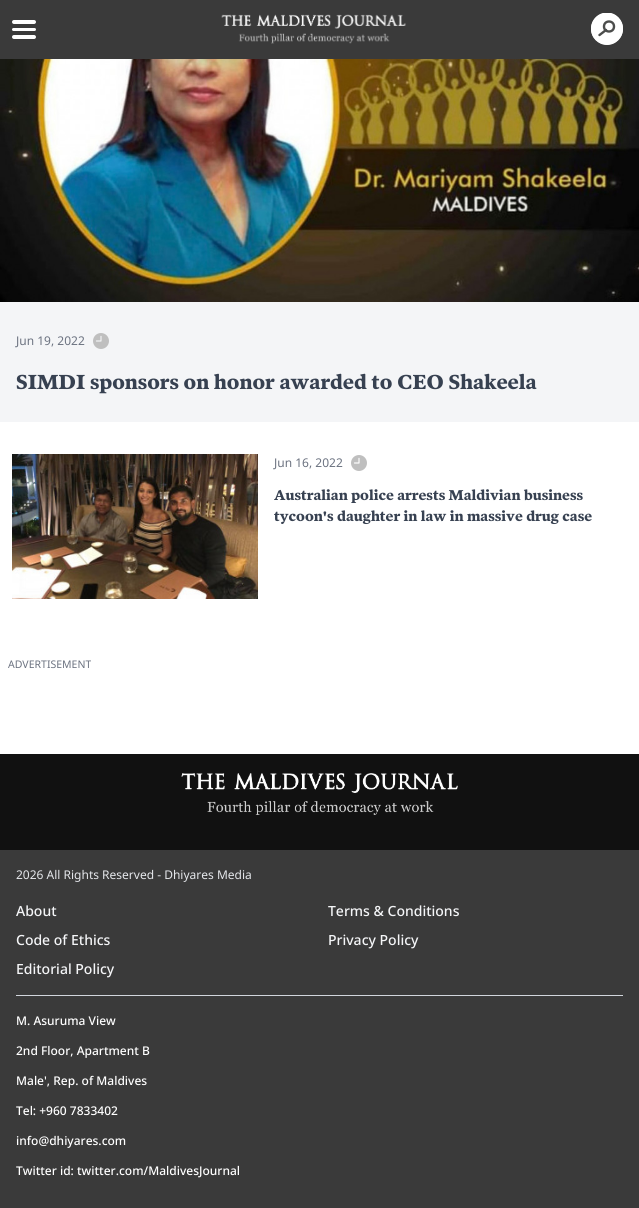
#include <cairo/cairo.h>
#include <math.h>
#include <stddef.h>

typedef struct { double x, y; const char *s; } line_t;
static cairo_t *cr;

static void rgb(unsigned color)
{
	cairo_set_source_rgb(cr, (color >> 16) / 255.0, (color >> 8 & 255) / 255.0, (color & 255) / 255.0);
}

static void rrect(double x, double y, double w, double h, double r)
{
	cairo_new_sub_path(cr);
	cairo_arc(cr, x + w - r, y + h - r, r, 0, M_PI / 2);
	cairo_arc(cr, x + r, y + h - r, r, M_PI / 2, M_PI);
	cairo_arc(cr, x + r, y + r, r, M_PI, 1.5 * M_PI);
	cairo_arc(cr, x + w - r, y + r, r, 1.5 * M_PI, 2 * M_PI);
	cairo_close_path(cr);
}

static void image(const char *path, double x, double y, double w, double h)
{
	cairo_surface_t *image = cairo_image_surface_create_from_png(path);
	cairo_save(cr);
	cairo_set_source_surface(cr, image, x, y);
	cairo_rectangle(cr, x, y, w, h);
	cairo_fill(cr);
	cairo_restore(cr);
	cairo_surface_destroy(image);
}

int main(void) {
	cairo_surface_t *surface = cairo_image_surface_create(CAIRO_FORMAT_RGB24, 639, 1208);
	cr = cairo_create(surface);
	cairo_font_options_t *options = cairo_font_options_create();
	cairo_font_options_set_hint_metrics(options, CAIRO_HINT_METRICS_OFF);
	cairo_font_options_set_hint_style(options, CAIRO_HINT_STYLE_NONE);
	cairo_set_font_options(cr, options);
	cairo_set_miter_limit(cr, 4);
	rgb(0xffffff);
	cairo_paint(cr);
	rgb(0x3a3a3a);
	cairo_rectangle(cr, 0, 0, 639, 59);
	cairo_fill(cr);
	rgb(0xffffff);
	rrect(12, 20, 24, 4, 2);
	cairo_fill(cr);
	rrect(12, 28, 24, 3, 1.5);
	cairo_fill(cr);
	rrect(12, 35, 24, 4, 2);
	cairo_fill(cr);
	image("img/1.png", 221, 14, 185, 30);
	cairo_arc(cr, 607, 29, 16, 0, 2 * M_PI);
	cairo_fill(cr);
	cairo_save(cr);
	cairo_rectangle(cr, 591, 13, 32, 32);
	cairo_clip(cr);
	cairo_arc(cr, 607, 28.5, 16, 0, 2 * M_PI);
	cairo_fill(cr);
	cairo_restore(cr);
	cairo_arc(cr, 609, 26.5, 5, 0, 2 * M_PI);
	rgb(0x4c4d4c);
	cairo_set_line_width(cr, 2.4);
	cairo_stroke(cr);
	cairo_new_path(cr);
	cairo_move_to(cr, 606, 30);
	cairo_line_to(cr, 599.5, 35);
	cairo_set_line_cap(cr, CAIRO_LINE_CAP_ROUND);
	cairo_stroke(cr);
	rgb(0xf4f5f7);
	cairo_rectangle(cr, 0, 302, 639, 120);
	cairo_fill(cr);
	image("img/2.png", 0, 59, 639, 243);
	image("img/3.png", 93, 333, 16, 16);
	image("img/4.png", 12, 454, 246, 145);
	image("img/5.png", 351, 455, 16, 16);
	rgb(0x3a3a3a);
	cairo_rectangle(cr, 0, 850, 639, 358);
	cairo_fill(cr);
	rgb(0x111111);
	cairo_rectangle(cr, 0, 754, 639, 96);
	cairo_fill(cr);
	image("img/6.png", 181, 773, 277, 42);
	rgb(0xd2d6dc);
	cairo_rectangle(cr, 16, 995, 607, 1);
	cairo_fill(cr);
	cairo_select_font_face(cr, "Noto Sans", CAIRO_FONT_SLANT_NORMAL, CAIRO_FONT_WEIGHT_NORMAL);
	cairo_set_font_size(cr, 12);
	rgb(0x6b7280);
	cairo_move_to(cr, 16, 345);
	cairo_show_text(cr, "Jun 19, 2022");
	cairo_select_font_face(cr, "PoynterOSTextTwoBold", CAIRO_FONT_SLANT_NORMAL, CAIRO_FONT_WEIGHT_BOLD);
	cairo_set_font_size(cr, 20);
	rgb(0x374151);
	cairo_move_to(cr, 16, 389);
	cairo_show_text(cr, "SIMDI sponsors on honor awarded to CEO Shakeela");
	cairo_select_font_face(cr, "Noto Sans", CAIRO_FONT_SLANT_NORMAL, CAIRO_FONT_WEIGHT_NORMAL);
	cairo_set_font_size(cr, 12);
	rgb(0x6b7280);
	cairo_move_to(cr, 274, 467);
	cairo_show_text(cr, "Jun 16, 2022");
	cairo_select_font_face(cr, "PoynterOSTextTwoBold", CAIRO_FONT_SLANT_NORMAL, CAIRO_FONT_WEIGHT_BOLD);
	cairo_set_font_size(cr, 14);
	rgb(0x374151);
	cairo_move_to(cr, 274, 500);
	cairo_show_text(cr, "Australian police arrests Maldivian business");
	cairo_move_to(cr, 274, 521);
	cairo_show_text(cr, "tycoon's daughter in law in massive drug case");
	cairo_select_font_face(cr, "Noto Sans", CAIRO_FONT_SLANT_NORMAL, CAIRO_FONT_WEIGHT_NORMAL);
	cairo_set_font_size(cr, 10.5);
	rgb(0x6b7280);
	cairo_move_to(cr, 8, 668);
	cairo_show_text(cr, "ADVERTISEMENT");
	cairo_set_font_size(cr, 12);
	rgb(0xe5e7eb);
	cairo_move_to(cr, 16, 879);
	cairo_show_text(cr, "2026 All Rights Reserved - Dhiyares Media");
	cairo_select_font_face(cr, "Noto Sans Medium", CAIRO_FONT_SLANT_NORMAL, CAIRO_FONT_WEIGHT_NORMAL);
	cairo_set_font_size(cr, 14);
	rgb(0xf4f5f7);
	{
		static const line_t items[] = {
			{16, 916, "About"},
			{328, 916, "Terms & Conditions"},
			{16, 945, "Code of Ethics"},
			{328, 945, "Privacy Policy"},
			{16, 974, "Editorial Policy"},
		};
		for (size_t i = 0; i < sizeof items / sizeof *items; i++) {
			cairo_move_to(cr, items[i].x, items[i].y);
			cairo_show_text(cr, items[i].s);
		}
	}
	cairo_set_font_size(cr, 12);
	rgb(0xffffff);
	{
		static const line_t items[] = {
			{16, 1025, "M. Asuruma View"},
			{16, 1055, "2nd Floor, Apartment B"},
			{16, 1085, "Male', Rep. of Maldives"},
			{16, 1115, "Tel: +960 7833402"},
			{16, 1145, "info@dhiyares.com"},
			{16, 1175, "Twitter id: twitter.com/MaldivesJournal"},
		};
		for (size_t i = 0; i < sizeof items / sizeof *items; i++) {
			cairo_move_to(cr, items[i].x, items[i].y);
			cairo_show_text(cr, items[i].s);
		}
	}
	cairo_surface_write_to_png(surface, "page.png");
	cairo_font_options_destroy(options);
	cairo_destroy(cr);
	cairo_surface_destroy(surface);
	return 0;
}
